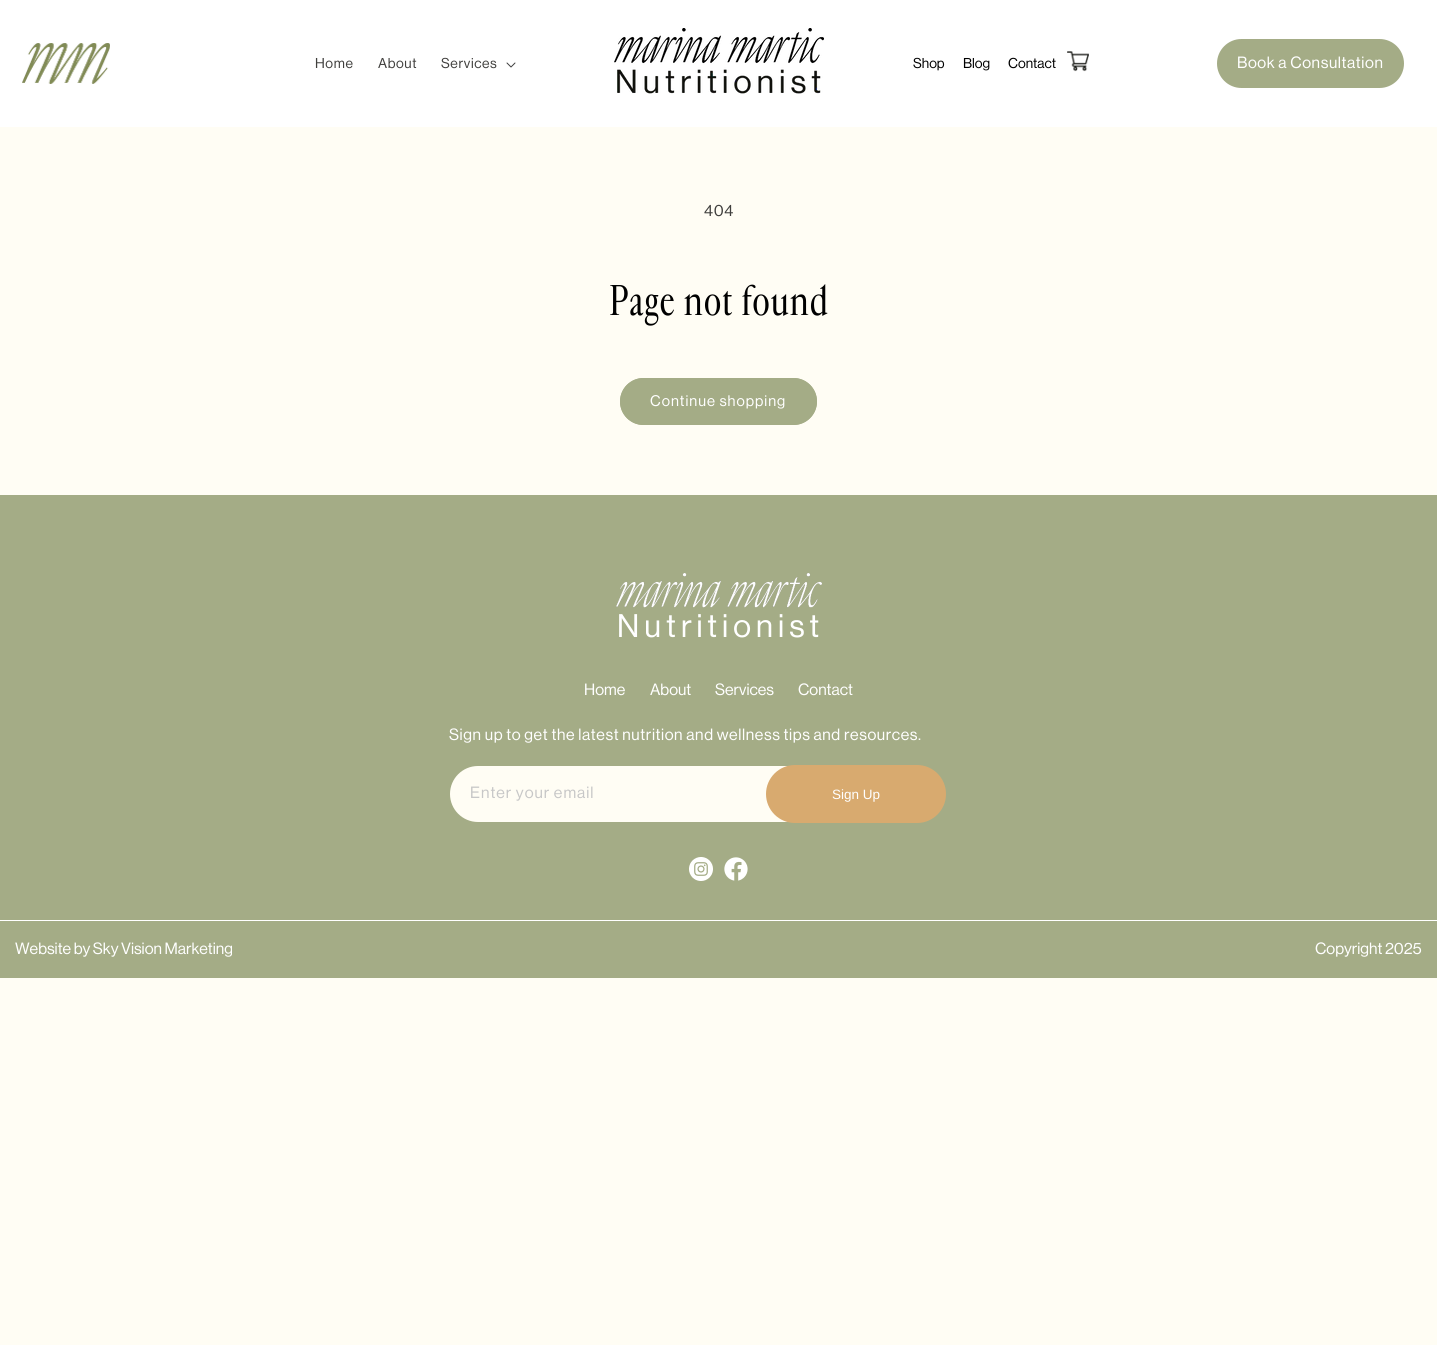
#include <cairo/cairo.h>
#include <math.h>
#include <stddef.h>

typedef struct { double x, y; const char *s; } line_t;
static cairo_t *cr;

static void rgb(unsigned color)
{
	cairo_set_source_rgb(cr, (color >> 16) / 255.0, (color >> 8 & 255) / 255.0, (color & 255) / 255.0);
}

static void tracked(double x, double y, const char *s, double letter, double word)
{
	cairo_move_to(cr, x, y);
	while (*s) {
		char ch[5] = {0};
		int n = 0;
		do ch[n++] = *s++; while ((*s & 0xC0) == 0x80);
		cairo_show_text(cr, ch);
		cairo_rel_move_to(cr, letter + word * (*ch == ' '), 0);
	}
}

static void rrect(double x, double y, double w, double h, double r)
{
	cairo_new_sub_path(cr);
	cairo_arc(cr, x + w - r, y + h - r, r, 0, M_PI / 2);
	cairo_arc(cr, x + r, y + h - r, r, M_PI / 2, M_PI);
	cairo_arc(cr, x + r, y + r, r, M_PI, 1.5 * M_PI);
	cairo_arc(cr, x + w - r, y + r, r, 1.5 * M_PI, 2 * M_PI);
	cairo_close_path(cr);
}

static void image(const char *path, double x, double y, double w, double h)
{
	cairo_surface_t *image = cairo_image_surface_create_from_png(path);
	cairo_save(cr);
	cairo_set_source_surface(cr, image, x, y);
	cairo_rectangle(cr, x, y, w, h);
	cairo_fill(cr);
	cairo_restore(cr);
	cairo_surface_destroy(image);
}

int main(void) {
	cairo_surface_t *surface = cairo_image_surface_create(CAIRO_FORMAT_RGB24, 1437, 1345);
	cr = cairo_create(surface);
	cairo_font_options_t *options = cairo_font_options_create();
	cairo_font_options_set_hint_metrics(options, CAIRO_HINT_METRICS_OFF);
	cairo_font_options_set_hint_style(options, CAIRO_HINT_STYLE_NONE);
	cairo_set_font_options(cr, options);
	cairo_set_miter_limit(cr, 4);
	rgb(0xfffdf4);
	cairo_paint(cr);
	rgb(0xffffff);
	cairo_rectangle(cr, 0, 0, 1437, 127);
	cairo_fill(cr);
	image("img/1.png", 22, 43, 88, 41);
	image("img/2.png", 506, 62, 10, 6);
	image("img/3.png", 614, 28, 210, 66);
	image("img/4.png", 1067, 51, 22, 21);
	rgb(0xa4ac86);
	rrect(1217, 39, 187, 49, 24.5);
	cairo_fill(cr);
	rrect(620, 378, 197, 47, 23.5);
	cairo_fill(cr);
	rrect(620.5, 378.5, 196, 46, 23);
	cairo_set_line_width(cr, 1);
	cairo_stroke(cr);
	cairo_rectangle(cr, 0, 495, 1437, 483);
	cairo_fill(cr);
	image("img/5.png", 616, 573, 206, 65);
	rgb(0xfffdf4);
	rrect(450, 766, 495, 56, 28);
	cairo_fill(cr);
	rgb(0xd8aa6f);
	rrect(766, 765, 180, 58, 29);
	cairo_fill(cr);
	image("img/6.png", 689, 857, 24, 24);
	image("img/7.png", 724, 857, 24, 24);
	rgb(0xffffff);
	cairo_rectangle(cr, 0, 920, 1437, 1);
	cairo_fill(cr);
	cairo_select_font_face(cr, "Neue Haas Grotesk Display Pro", CAIRO_FONT_SLANT_NORMAL, CAIRO_FONT_WEIGHT_NORMAL);
	cairo_set_font_size(cr, 14);
	rgb(0x403f3d);
	{
		static const line_t items[] = {
			{315, 68, "Home"},
			{378, 68, "About"},
			{441, 68, "Services"},
		};
		for (size_t i = 0; i < sizeof items / sizeof *items; i++) {
			tracked(items[i].x, items[i].y, items[i].s, 0.6, 0);
		}
	}
	rgb(0x000000);
	{
		static const line_t items[] = {
			{913, 68, "Shop"},
			{963, 68, "Blog"},
			{1008, 68, "Contact"},
		};
		for (size_t i = 0; i < sizeof items / sizeof *items; i++) {
			cairo_move_to(cr, items[i].x, items[i].y);
			cairo_show_text(cr, items[i].s);
		}
	}
	cairo_set_font_size(cr, 16);
	rgb(0xffffff);
	tracked(1237, 68, "Book a Consultation", 0.6, 0);
	rgb(0x403f3d);
	tracked(704, 216, "404", 0.6, 0);
	cairo_select_font_face(cr, "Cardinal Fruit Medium", CAIRO_FONT_SLANT_NORMAL, CAIRO_FONT_WEIGHT_NORMAL);
	cairo_set_font_size(cr, 40);
	rgb(0x000000);
	tracked(609, 315, "Page not found", 0.6, 0);
	cairo_select_font_face(cr, "Neue Haas Grotesk Display Pro", CAIRO_FONT_SLANT_NORMAL, CAIRO_FONT_WEIGHT_NORMAL);
	cairo_set_font_size(cr, 15);
	rgb(0xffffff);
	tracked(650, 406, "Continue shopping", 1, 0);
	cairo_set_font_size(cr, 16);
	{
		static const line_t items[] = {
			{584, 695, "Home"},
			{650, 695, "About"},
			{715, 695, "Services"},
			{798, 695, "Contact"},
		};
		for (size_t i = 0; i < sizeof items / sizeof *items; i++) {
			cairo_move_to(cr, items[i].x, items[i].y);
			cairo_show_text(cr, items[i].s);
		}
	}
	tracked(449, 740, "Sign up to get the latest nutrition and wellness tips and resources.", 0.6, 0);
	rgb(0xc7c7c7);
	tracked(470, 798, "Enter your email", 1, 0);
	cairo_select_font_face(cr, "Liberation Sans", CAIRO_FONT_SLANT_NORMAL, CAIRO_FONT_WEIGHT_NORMAL);
	cairo_set_font_size(cr, 13.5);
	rgb(0xffffff);
	cairo_move_to(cr, 832, 799);
	cairo_show_text(cr, "Sign Up");
	cairo_select_font_face(cr, "Neue Haas Grotesk Display Pro", CAIRO_FONT_SLANT_NORMAL, CAIRO_FONT_WEIGHT_NORMAL);
	cairo_set_font_size(cr, 16);
	cairo_move_to(cr, 15, 954);
	cairo_show_text(cr, "Website by Sky Vision Marketing");
	cairo_move_to(cr, 1315, 954);
	cairo_show_text(cr, "Copyright 2025");
	cairo_surface_write_to_png(surface, "page.png");
	cairo_font_options_destroy(options);
	cairo_destroy(cr);
	cairo_surface_destroy(surface);
	return 0;
}
